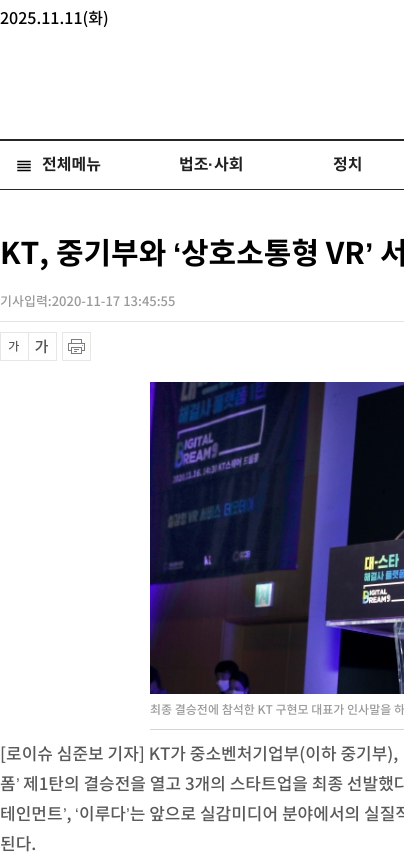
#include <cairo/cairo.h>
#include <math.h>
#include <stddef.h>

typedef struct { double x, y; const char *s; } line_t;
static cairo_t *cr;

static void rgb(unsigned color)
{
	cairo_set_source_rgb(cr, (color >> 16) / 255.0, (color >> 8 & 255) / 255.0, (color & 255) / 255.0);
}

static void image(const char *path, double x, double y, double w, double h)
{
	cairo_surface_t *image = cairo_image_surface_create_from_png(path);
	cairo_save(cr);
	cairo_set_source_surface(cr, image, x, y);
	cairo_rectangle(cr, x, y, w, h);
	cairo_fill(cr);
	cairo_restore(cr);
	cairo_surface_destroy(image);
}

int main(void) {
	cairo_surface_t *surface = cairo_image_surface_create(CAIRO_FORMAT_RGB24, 404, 866);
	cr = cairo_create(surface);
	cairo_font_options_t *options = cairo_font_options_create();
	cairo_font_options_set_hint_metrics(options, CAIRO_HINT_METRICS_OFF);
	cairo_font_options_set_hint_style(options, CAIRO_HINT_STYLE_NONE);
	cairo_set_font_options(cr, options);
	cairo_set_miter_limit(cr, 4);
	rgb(0xffffff);
	cairo_paint(cr);
	rgb(0x262626);
	cairo_rectangle(cr, 0, 139, 404, 2);
	cairo_fill(cr);
	cairo_rectangle(cr, 0, 189, 404, 1);
	cairo_fill(cr);
	image("img/1.png", 17, 160, 14, 12);
	rgb(0xe3e3e3);
	cairo_rectangle(cr, 0, 321, 404, 1);
	cairo_fill(cr);
	image("img/2.png", 0, 332, 29, 29);
	image("img/3.png", 29, 332, 28, 29);
	image("img/4.png", 62, 332, 29, 29);
	image("img/5.png", 150, 382, 254, 312);
	rgb(0xd4d4d4);
	cairo_rectangle(cr, 150, 729, 254, 1);
	cairo_fill(cr);
	cairo_select_font_face(cr, "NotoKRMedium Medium", CAIRO_FONT_SLANT_NORMAL, CAIRO_FONT_WEIGHT_NORMAL);
	cairo_set_font_size(cr, 16);
	rgb(0x000000);
	cairo_move_to(cr, 0, 24);
	cairo_show_text(cr, "2025.11.11(화)");
	cairo_select_font_face(cr, "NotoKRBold", CAIRO_FONT_SLANT_NORMAL, CAIRO_FONT_WEIGHT_BOLD);
	rgb(0x212121);
	cairo_move_to(cr, 42, 170);
	cairo_show_text(cr, "전체메뉴");
	cairo_move_to(cr, 179, 170);
	cairo_show_text(cr, "법조");
	cairo_select_font_face(cr, "Liberation Sans", CAIRO_FONT_SLANT_NORMAL, CAIRO_FONT_WEIGHT_BOLD);
	cairo_move_to(cr, 208, 170);
	cairo_show_text(cr, "·");
	cairo_select_font_face(cr, "NotoKRBold", CAIRO_FONT_SLANT_NORMAL, CAIRO_FONT_WEIGHT_BOLD);
	cairo_move_to(cr, 214, 170);
	cairo_show_text(cr, "사회");
	cairo_move_to(cr, 333, 170);
	cairo_show_text(cr, "정치");
	cairo_set_font_size(cr, 30);
	rgb(0x000000);
	cairo_move_to(cr, 0, 264);
	cairo_show_text(cr, "KT, 중기부와");
	cairo_select_font_face(cr, "Liberation Sans", CAIRO_FONT_SLANT_NORMAL, CAIRO_FONT_WEIGHT_BOLD);
	cairo_move_to(cr, 173, 264);
	cairo_show_text(cr, "‘");
	cairo_select_font_face(cr, "NotoKRBold", CAIRO_FONT_SLANT_NORMAL, CAIRO_FONT_WEIGHT_BOLD);
	cairo_move_to(cr, 181, 264);
	cairo_show_text(cr, "상호소통형 VR");
	cairo_select_font_face(cr, "Liberation Sans", CAIRO_FONT_SLANT_NORMAL, CAIRO_FONT_WEIGHT_BOLD);
	cairo_move_to(cr, 365, 264);
	cairo_show_text(cr, "’");
	cairo_select_font_face(cr, "NotoKRBold", CAIRO_FONT_SLANT_NORMAL, CAIRO_FONT_WEIGHT_BOLD);
	cairo_move_to(cr, 380, 264);
	cairo_show_text(cr, "서");
	cairo_select_font_face(cr, "NotoKRMedium Medium", CAIRO_FONT_SLANT_NORMAL, CAIRO_FONT_WEIGHT_NORMAL);
	cairo_set_font_size(cr, 13);
	rgb(0x999999);
	cairo_move_to(cr, 0, 306);
	cairo_show_text(cr, "기사입력:2020-11-17 13:45:55");
	cairo_set_font_size(cr, 12);
	cairo_move_to(cr, 150, 714);
	cairo_show_text(cr, "최종 결승전에 참석한 KT 구현모 대표가 인사말을 하");
	cairo_set_font_size(cr, 17);
	rgb(0x595959);
	cairo_move_to(cr, 0, 760);
	cairo_show_text(cr, "[로이슈 심준보 기자] KT가 중소벤처기업부(이하 중기부),");
	cairo_move_to(cr, 0, 790);
	cairo_show_text(cr, "폼");
	cairo_select_font_face(cr, "Liberation Sans", CAIRO_FONT_SLANT_NORMAL, CAIRO_FONT_WEIGHT_NORMAL);
	cairo_move_to(cr, 16, 790);
	cairo_show_text(cr, "’");
	cairo_select_font_face(cr, "NotoKRMedium Medium", CAIRO_FONT_SLANT_NORMAL, CAIRO_FONT_WEIGHT_NORMAL);
	{
		static const line_t items[] = {
			{23, 790, "제1탄의 결승전을 열고 3개의 스타트업을 최종 선발했다"},
			{0, 820, "테인먼트 ,"},
			{79, 820, "이루다 는 앞으로 실감미디어 분야에서의 실질적"},
		};
		for (size_t i = 0; i < sizeof items / sizeof *items; i++) {
			cairo_move_to(cr, items[i].x, items[i].y);
			cairo_show_text(cr, items[i].s);
		}
	}
	cairo_select_font_face(cr, "Liberation Sans", CAIRO_FONT_SLANT_NORMAL, CAIRO_FONT_WEIGHT_NORMAL);
	{
		static const line_t items[] = {
			{63, 820, "’"},
			{75, 820, "‘"},
			{126, 820, "’"},
		};
		for (size_t i = 0; i < sizeof items / sizeof *items; i++) {
			cairo_move_to(cr, items[i].x, items[i].y);
			cairo_show_text(cr, items[i].s);
		}
	}
	cairo_select_font_face(cr, "NotoKRMedium Medium", CAIRO_FONT_SLANT_NORMAL, CAIRO_FONT_WEIGHT_NORMAL);
	cairo_move_to(cr, 0, 850);
	cairo_show_text(cr, "된다.");
	cairo_surface_write_to_png(surface, "page.png");
	cairo_font_options_destroy(options);
	cairo_destroy(cr);
	cairo_surface_destroy(surface);
	return 0;
}
